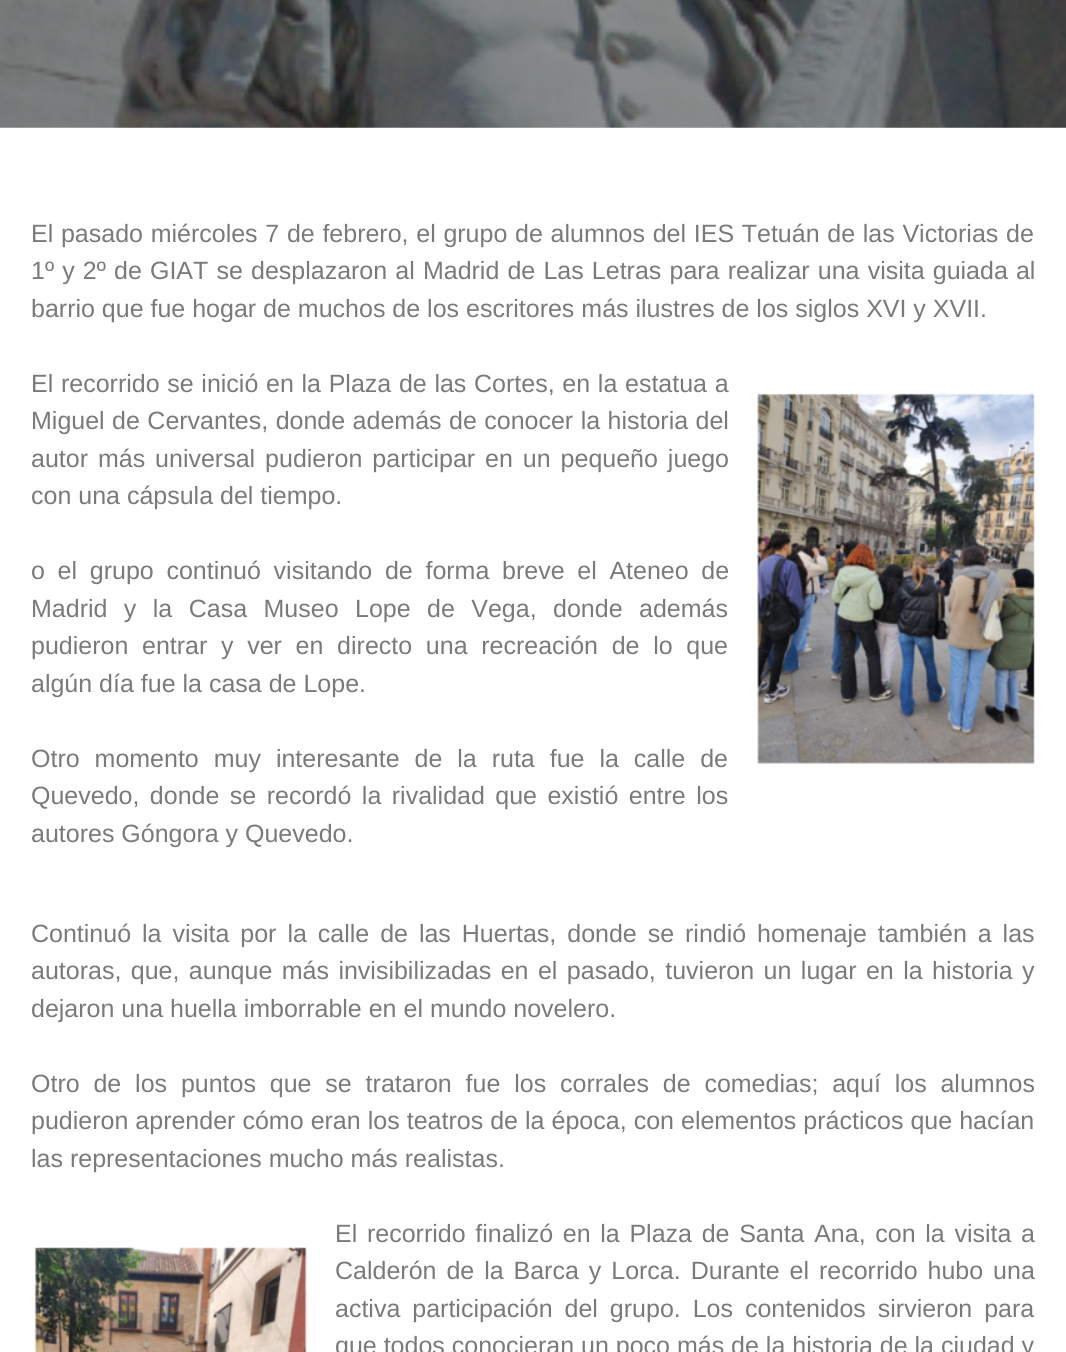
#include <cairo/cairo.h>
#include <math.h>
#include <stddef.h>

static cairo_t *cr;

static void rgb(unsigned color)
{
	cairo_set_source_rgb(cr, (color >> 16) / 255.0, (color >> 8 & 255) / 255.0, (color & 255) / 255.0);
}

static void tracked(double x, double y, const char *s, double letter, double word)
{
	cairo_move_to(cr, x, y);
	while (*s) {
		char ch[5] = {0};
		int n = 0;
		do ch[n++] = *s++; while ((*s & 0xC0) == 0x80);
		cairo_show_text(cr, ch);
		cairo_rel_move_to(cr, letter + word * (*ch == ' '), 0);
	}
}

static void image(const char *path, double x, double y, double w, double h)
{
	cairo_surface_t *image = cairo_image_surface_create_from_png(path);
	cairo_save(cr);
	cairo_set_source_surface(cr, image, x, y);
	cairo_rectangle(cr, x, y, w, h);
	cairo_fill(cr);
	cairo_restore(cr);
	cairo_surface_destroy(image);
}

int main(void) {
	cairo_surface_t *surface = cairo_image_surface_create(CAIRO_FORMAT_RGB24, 1066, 1352);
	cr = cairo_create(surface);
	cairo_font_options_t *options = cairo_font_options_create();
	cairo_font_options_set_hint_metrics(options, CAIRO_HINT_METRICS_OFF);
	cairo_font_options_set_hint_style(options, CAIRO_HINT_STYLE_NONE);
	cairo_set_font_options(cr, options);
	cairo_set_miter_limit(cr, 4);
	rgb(0xffffff);
	cairo_paint(cr);
	image("img/1.png", 0, 0, 1066, 128);
	image("img/2.png", 757, 393, 278, 372);
	image("img/3.png", 34, 1247, 273, 105);
	cairo_select_font_face(cr, "Liberation Sans", CAIRO_FONT_SLANT_NORMAL, CAIRO_FONT_WEIGHT_NORMAL);
	cairo_set_font_size(cr, 25);
	rgb(0x7a7a7a);
	tracked(31, 242, "El pasado miércoles 7 de febrero, el grupo de alumnos del IES Tetuán de las Victorias de", 0, 0.75);
	tracked(31, 279, "1º y 2º de GIAT se desplazaron al Madrid de Las Letras para realizar una visita guiada al", 0, 1.2);
	cairo_move_to(cr, 31, 317);
	cairo_show_text(cr, "barrio que fue hogar de muchos de los escritores más ilustres de los siglos XVI y XVII.");
	tracked(31, 392, "El recorrido se inició en la Plaza de las Cortes, en la estatua a", 0, 0.75);
	tracked(31, 429, "Miguel de Cervantes, donde además de conocer la historia del", 0, 0.5);
	tracked(31, 467, "autor más universal pudieron participar en un pequeño juego", 0, 3);
	cairo_move_to(cr, 31, 504);
	cairo_show_text(cr, "con una cápsula del tiempo.");
	tracked(31, 579, "o el grupo continuó visitando de forma breve el Ateneo de", 0, 5.75);
	tracked(31, 617, "Madrid y la Casa Museo Lope de Vega, donde además", 0, 9.5);
	tracked(31, 654, "pudieron entrar y ver en directo una recreación de lo que", 0, 6.75);
	cairo_move_to(cr, 31, 692);
	cairo_show_text(cr, "algún día fue la casa de Lope.");
	tracked(31, 767, "Otro momento muy interesante de la ruta fue la calle de", 0, 8);
	tracked(31, 804, "Quevedo, donde se recordó la rivalidad que existió entre los", 0, 3.5);
	cairo_move_to(cr, 31, 842);
	cairo_show_text(cr, "autores Góngora y Quevedo.");
	tracked(31, 942, "Continuó la visita por la calle de las Huertas, donde se rindió homenaje también a las", 0, 4);
	tracked(31, 979, "autoras, que, aunque más invisibilizadas en el pasado, tuvieron un lugar en la historia y", 0, 2.5);
	cairo_move_to(cr, 31, 1017);
	cairo_show_text(cr, "dejaron una huella imborrable en el mundo novelero.");
	tracked(31, 1092, "Otro de los puntos que se trataron fue los corrales de comedias; aquí los alumnos", 0, 6.9);
	tracked(31, 1129, "pudieron aprender cómo eran los teatros de la época, con elementos prácticos que hacían", 0, 0.1);
	cairo_move_to(cr, 31, 1167);
	cairo_show_text(cr, "las representaciones mucho más realistas.");
	tracked(335, 1242, "El recorrido finalizó en la Plaza de Santa Ana, con la visita a", 0, 2.75);
	tracked(335, 1279, "Calderón de la Barca y Lorca. Durante el recorrido hubo una", 0, 3);
	tracked(335, 1317, "activa participación del grupo. Los contenidos sirvieron para", 0, 5);
	cairo_move_to(cr, 335, 1354);
	cairo_show_text(cr, "que todos conocieran un poco más de la historia de la ciudad y");
	cairo_surface_write_to_png(surface, "page.png");
	cairo_font_options_destroy(options);
	cairo_destroy(cr);
	cairo_surface_destroy(surface);
	return 0;
}
